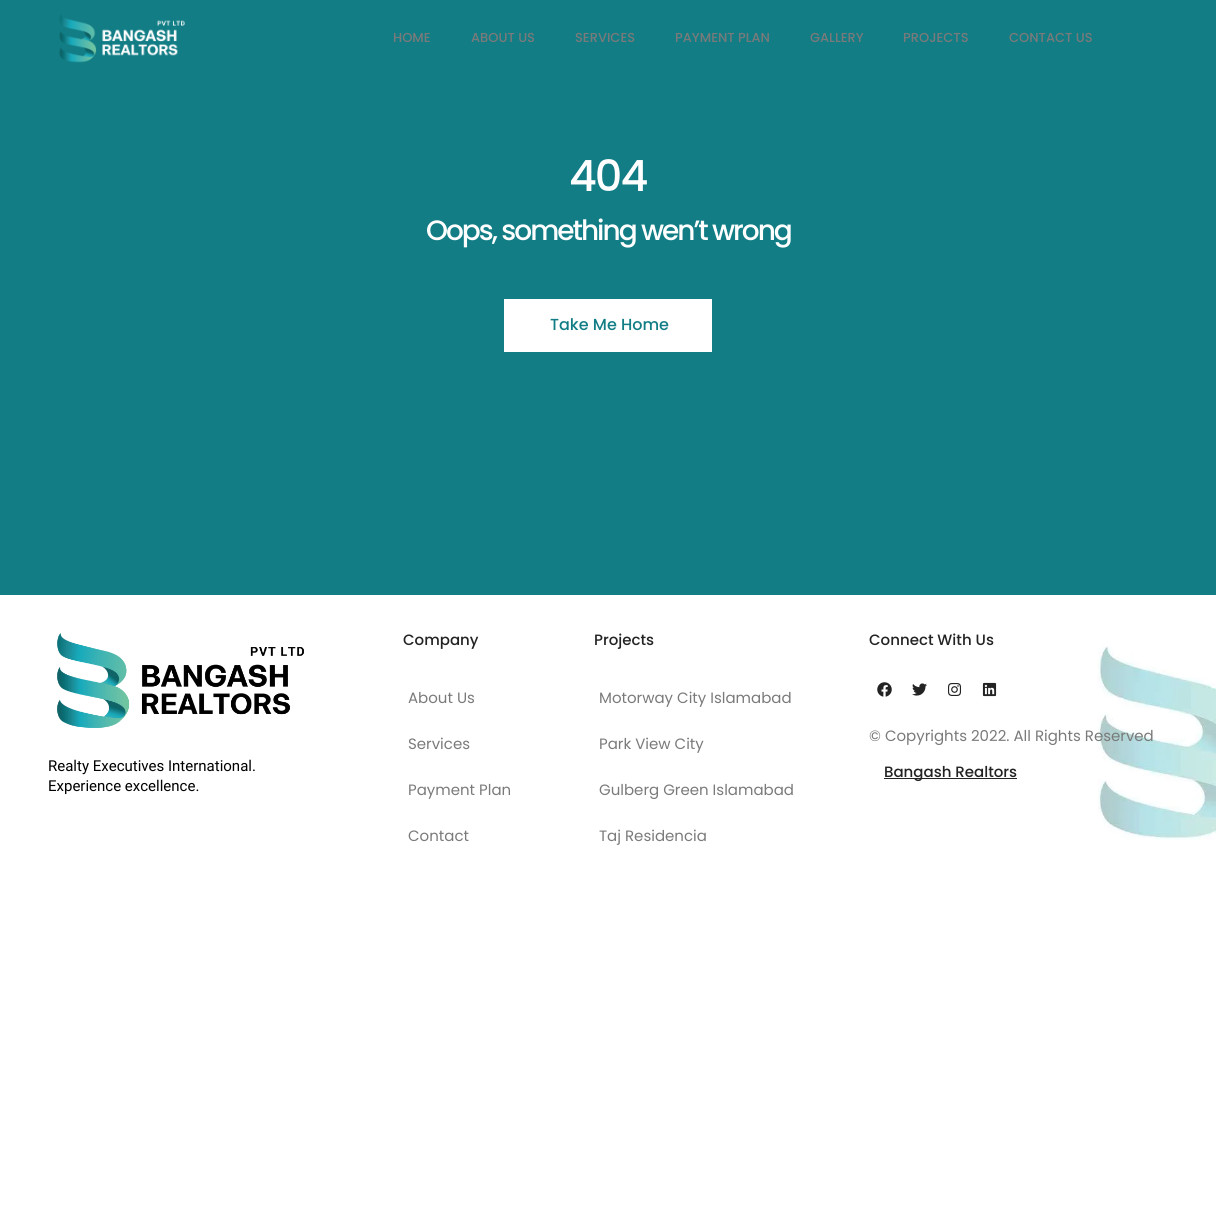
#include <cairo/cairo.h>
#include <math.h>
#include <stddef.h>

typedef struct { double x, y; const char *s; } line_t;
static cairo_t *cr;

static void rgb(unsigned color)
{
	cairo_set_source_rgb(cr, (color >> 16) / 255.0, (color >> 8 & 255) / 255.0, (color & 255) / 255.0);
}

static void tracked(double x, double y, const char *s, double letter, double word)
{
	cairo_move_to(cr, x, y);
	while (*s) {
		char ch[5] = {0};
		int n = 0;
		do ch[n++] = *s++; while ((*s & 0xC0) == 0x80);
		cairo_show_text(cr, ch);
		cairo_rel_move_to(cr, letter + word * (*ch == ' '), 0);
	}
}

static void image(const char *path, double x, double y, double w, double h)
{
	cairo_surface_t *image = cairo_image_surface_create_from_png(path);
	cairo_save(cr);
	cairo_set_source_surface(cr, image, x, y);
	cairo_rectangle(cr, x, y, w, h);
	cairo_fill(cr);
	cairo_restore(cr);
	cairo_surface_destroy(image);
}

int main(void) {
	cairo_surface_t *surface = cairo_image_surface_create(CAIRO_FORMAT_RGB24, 1216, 1216);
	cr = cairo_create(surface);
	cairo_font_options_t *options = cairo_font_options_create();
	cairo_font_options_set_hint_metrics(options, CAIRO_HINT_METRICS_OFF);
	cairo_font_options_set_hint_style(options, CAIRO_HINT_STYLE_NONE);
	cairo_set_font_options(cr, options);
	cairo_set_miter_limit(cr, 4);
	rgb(0xffffff);
	cairo_paint(cr);
	rgb(0x127d85);
	cairo_rectangle(cr, 0, 0, 1216, 595);
	cairo_fill(cr);
	image("img/1.png", 59, 15, 126, 48);
	rgb(0xffffff);
	cairo_rectangle(cr, 504, 299, 208, 53);
	cairo_fill(cr);
	image("img/2.png", 1097, 646, 119, 194);
	image("img/3.png", 57, 633, 247, 95);
	image("img/4.png", 877, 682, 15, 15);
	image("img/5.png", 912, 683, 15, 13);
	image("img/6.png", 948, 683, 14, 13);
	image("img/7.png", 982, 682, 15, 15);
	rgb(0x232323);
	cairo_rectangle(cr, 884, 778, 133, 1);
	cairo_fill(cr);
	cairo_select_font_face(cr, "Poppins Medium", CAIRO_FONT_SLANT_NORMAL, CAIRO_FONT_WEIGHT_NORMAL);
	cairo_set_font_size(cr, 13);
	rgb(0x7a7a7a);
	{
		static const line_t items[] = {
			{393, 42, "HOME"},
			{471, 42, "ABOUT US"},
			{575, 42, "SERVICES"},
			{675, 42, "PAYMENT PLAN"},
			{810, 42, "GALLERY"},
			{903, 42, "PROJECTS"},
			{1009, 42, "CONTACT US"},
		};
		for (size_t i = 0; i < sizeof items / sizeof *items; i++) {
			cairo_move_to(cr, items[i].x, items[i].y);
			cairo_show_text(cr, items[i].s);
		}
	}
	cairo_set_font_size(cr, 43);
	rgb(0xffffff);
	tracked(569, 191, "404", -2, 0);
	cairo_set_font_size(cr, 28);
	tracked(426, 240, "Oops, something wen’t wrong", -2, 0);
	cairo_set_font_size(cr, 16);
	rgb(0x127d85);
	cairo_move_to(cr, 550, 330);
	cairo_show_text(cr, "Take Me Home");
	cairo_select_font_face(cr, "Roboto", CAIRO_FONT_SLANT_NORMAL, CAIRO_FONT_WEIGHT_NORMAL);
	cairo_set_font_size(cr, 15);
	rgb(0x000000);
	cairo_move_to(cr, 48, 771);
	cairo_show_text(cr, "Realty Executives International.");
	cairo_move_to(cr, 48, 791);
	cairo_show_text(cr, "Experience excellence.");
	cairo_select_font_face(cr, "Poppins Medium", CAIRO_FONT_SLANT_NORMAL, CAIRO_FONT_WEIGHT_NORMAL);
	rgb(0x232323);
	cairo_move_to(cr, 403, 645);
	cairo_show_text(cr, "Company");
	cairo_select_font_face(cr, "Poppins", CAIRO_FONT_SLANT_NORMAL, CAIRO_FONT_WEIGHT_NORMAL);
	rgb(0x7a7a7a);
	{
		static const line_t items[] = {
			{408, 703, "About Us"},
			{408, 749, "Services"},
			{408, 795, "Payment Plan"},
			{408, 841, "Contact"},
		};
		for (size_t i = 0; i < sizeof items / sizeof *items; i++) {
			cairo_move_to(cr, items[i].x, items[i].y);
			cairo_show_text(cr, items[i].s);
		}
	}
	cairo_select_font_face(cr, "Poppins Medium", CAIRO_FONT_SLANT_NORMAL, CAIRO_FONT_WEIGHT_NORMAL);
	rgb(0x232323);
	cairo_move_to(cr, 594, 645);
	cairo_show_text(cr, "Projects");
	cairo_select_font_face(cr, "Poppins", CAIRO_FONT_SLANT_NORMAL, CAIRO_FONT_WEIGHT_NORMAL);
	rgb(0x7a7a7a);
	{
		static const line_t items[] = {
			{599, 703, "Motorway City Islamabad"},
			{599, 749, "Park View City"},
			{599, 795, "Gulberg Green Islamabad"},
			{599, 841, "Taj Residencia"},
		};
		for (size_t i = 0; i < sizeof items / sizeof *items; i++) {
			cairo_move_to(cr, items[i].x, items[i].y);
			cairo_show_text(cr, items[i].s);
		}
	}
	cairo_select_font_face(cr, "Poppins Medium", CAIRO_FONT_SLANT_NORMAL, CAIRO_FONT_WEIGHT_NORMAL);
	rgb(0x232323);
	cairo_move_to(cr, 869, 645);
	cairo_show_text(cr, "Connect With Us");
	cairo_select_font_face(cr, "Poppins", CAIRO_FONT_SLANT_NORMAL, CAIRO_FONT_WEIGHT_NORMAL);
	rgb(0x7a7a7a);
	cairo_move_to(cr, 869, 741);
	cairo_show_text(cr, "© Copyrights 2022. All Rights Reserved");
	cairo_select_font_face(cr, "Poppins Medium", CAIRO_FONT_SLANT_NORMAL, CAIRO_FONT_WEIGHT_NORMAL);
	rgb(0x232323);
	cairo_move_to(cr, 884, 777);
	cairo_show_text(cr, "Bangash Realtors");
	cairo_surface_write_to_png(surface, "page.png");
	cairo_font_options_destroy(options);
	cairo_destroy(cr);
	cairo_surface_destroy(surface);
	return 0;
}
